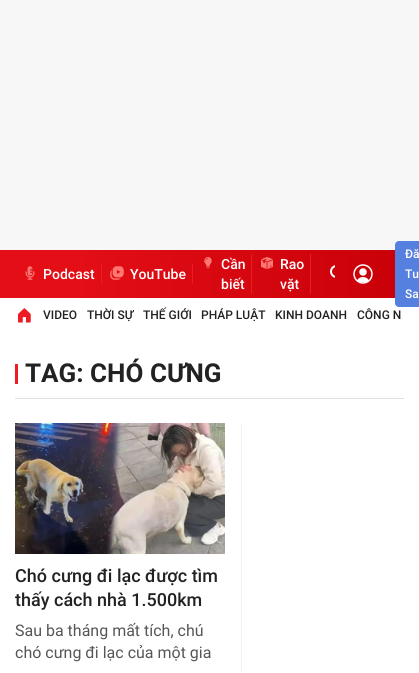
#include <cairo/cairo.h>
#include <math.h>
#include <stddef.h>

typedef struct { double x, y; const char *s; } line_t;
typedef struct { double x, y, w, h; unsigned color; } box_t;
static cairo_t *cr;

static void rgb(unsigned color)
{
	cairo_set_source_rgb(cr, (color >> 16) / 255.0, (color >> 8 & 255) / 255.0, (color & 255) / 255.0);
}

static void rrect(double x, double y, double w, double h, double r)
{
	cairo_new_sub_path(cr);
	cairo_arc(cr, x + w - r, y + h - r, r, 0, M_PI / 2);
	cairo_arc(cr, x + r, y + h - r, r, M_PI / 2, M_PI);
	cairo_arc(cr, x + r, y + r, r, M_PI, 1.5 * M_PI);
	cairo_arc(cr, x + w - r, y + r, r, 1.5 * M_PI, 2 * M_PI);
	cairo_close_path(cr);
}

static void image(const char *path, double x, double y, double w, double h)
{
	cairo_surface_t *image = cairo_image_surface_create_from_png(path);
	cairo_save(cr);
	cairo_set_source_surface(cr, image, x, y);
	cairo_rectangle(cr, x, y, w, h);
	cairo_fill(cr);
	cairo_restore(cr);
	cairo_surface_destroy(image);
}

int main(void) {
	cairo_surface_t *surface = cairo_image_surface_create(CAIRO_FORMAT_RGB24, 419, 673);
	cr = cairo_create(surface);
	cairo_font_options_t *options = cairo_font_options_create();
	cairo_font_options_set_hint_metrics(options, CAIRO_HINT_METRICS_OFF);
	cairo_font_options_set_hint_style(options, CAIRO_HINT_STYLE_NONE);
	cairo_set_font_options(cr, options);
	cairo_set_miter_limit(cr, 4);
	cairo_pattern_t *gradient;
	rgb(0xffffff);
	cairo_paint(cr);
	rgb(0xf7f7f7);
	cairo_rectangle(cr, 0, 0, 419, 250);
	cairo_fill(cr);
	gradient = cairo_pattern_create_linear(-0.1, 274, 419, 274);
	cairo_pattern_add_color_stop_rgba(gradient, 0.19, 0.89, 0.055, 0.086, 1);
	cairo_pattern_add_color_stop_rgba(gradient, 0.97, 0.788, 0, 0.035, 1);
	cairo_set_source(cr, gradient);
	cairo_pattern_destroy(gradient);
	cairo_rectangle(cr, 0, 250, 395, 48);
	cairo_fill(cr);
	rgb(0xed1c24);
	cairo_rectangle(cr, 101, 264, 1, 20);
	cairo_fill(cr);
	image("img/1.png", 25, 266, 10, 14);
	cairo_rectangle(cr, 192, 264, 1, 20);
	cairo_fill(cr);
	image("img/2.png", 110, 266, 14, 14);
	cairo_rectangle(cr, 251, 254, 1, 40);
	cairo_fill(cr);
	image("img/3.png", 204, 257, 8, 12);
	cairo_rectangle(cr, 310, 254, 1, 40);
	cairo_fill(cr);
	image("img/4.png", 261, 257, 12, 12);
	image("img/5.png", 330, 265, 5, 13);
	image("img/6.png", 353, 264, 20, 20);
	rgb(0x5580df);
	rrect(395, 241, 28, 66, 4);
	cairo_fill(cr);
	image("img/7.png", 18, 308, 13, 15);
	{
		static const box_t items[] = {
			{15, 398, 389, 1, 0xe2e2e2},
			{15, 364, 3, 20, 0xed1c24},
			{241, 423, 1, 250, 0xf2f2f2},
		};
		for (size_t i = 0; i < sizeof items / sizeof *items; i++) {
			rgb(items[i].color);
			cairo_rectangle(cr, items[i].x, items[i].y, items[i].w, items[i].h);
			cairo_fill(cr);
		}
	}
	image("img/8.png", 15, 423, 210, 131);
	cairo_select_font_face(cr, "Roboto Medium", CAIRO_FONT_SLANT_NORMAL, CAIRO_FONT_WEIGHT_NORMAL);
	cairo_set_font_size(cr, 14);
	rgb(0xffffff);
	{
		static const line_t items[] = {
			{43, 279, "Podcast"},
			{130, 279, "YouTube"},
			{221, 269, "Cần"},
			{221, 289, "biết"},
			{280, 269, "Rao"},
			{280, 289, "vặt"},
		};
		for (size_t i = 0; i < sizeof items / sizeof *items; i++) {
			cairo_move_to(cr, items[i].x, items[i].y);
			cairo_show_text(cr, items[i].s);
		}
	}
	cairo_set_font_size(cr, 12);
	{
		static const line_t items[] = {
			{405, 258, "Đă"},
			{405, 278, "Tu"},
			{405, 298, "Sa"},
		};
		for (size_t i = 0; i < sizeof items / sizeof *items; i++) {
			cairo_move_to(cr, items[i].x, items[i].y);
			cairo_show_text(cr, items[i].s);
		}
	}
	rgb(0x222222);
	{
		static const line_t items[] = {
			{43, 319, "VIDEO"},
			{87, 319, "THỜI SỰ"},
			{143, 319, "THẾ GIỚI"},
			{201, 319, "PHÁP LUẬT"},
			{275, 319, "KINH DOANH"},
			{357, 319, "CÔNG N"},
		};
		for (size_t i = 0; i < sizeof items / sizeof *items; i++) {
			cairo_move_to(cr, items[i].x, items[i].y);
			cairo_show_text(cr, items[i].s);
		}
	}
	cairo_select_font_face(cr, "Roboto", CAIRO_FONT_SLANT_NORMAL, CAIRO_FONT_WEIGHT_BOLD);
	cairo_set_font_size(cr, 26);
	cairo_move_to(cr, 25, 382);
	cairo_show_text(cr, "TAG: CHÓ CƯNG");
	cairo_select_font_face(cr, "Roboto Medium", CAIRO_FONT_SLANT_NORMAL, CAIRO_FONT_WEIGHT_NORMAL);
	cairo_set_font_size(cr, 18);
	cairo_move_to(cr, 15, 582);
	cairo_show_text(cr, "Chó cưng đi lạc được tìm");
	cairo_move_to(cr, 15, 606);
	cairo_show_text(cr, "thấy cách nhà 1.500km");
	cairo_select_font_face(cr, "Roboto", CAIRO_FONT_SLANT_NORMAL, CAIRO_FONT_WEIGHT_NORMAL);
	cairo_set_font_size(cr, 16);
	rgb(0x565656);
	cairo_move_to(cr, 15, 636);
	cairo_show_text(cr, "Sau ba tháng mất tích, chú");
	cairo_move_to(cr, 15, 658);
	cairo_show_text(cr, "chó cưng đi lạc của một gia");
	cairo_surface_write_to_png(surface, "page.png");
	cairo_font_options_destroy(options);
	cairo_destroy(cr);
	cairo_surface_destroy(surface);
	return 0;
}
